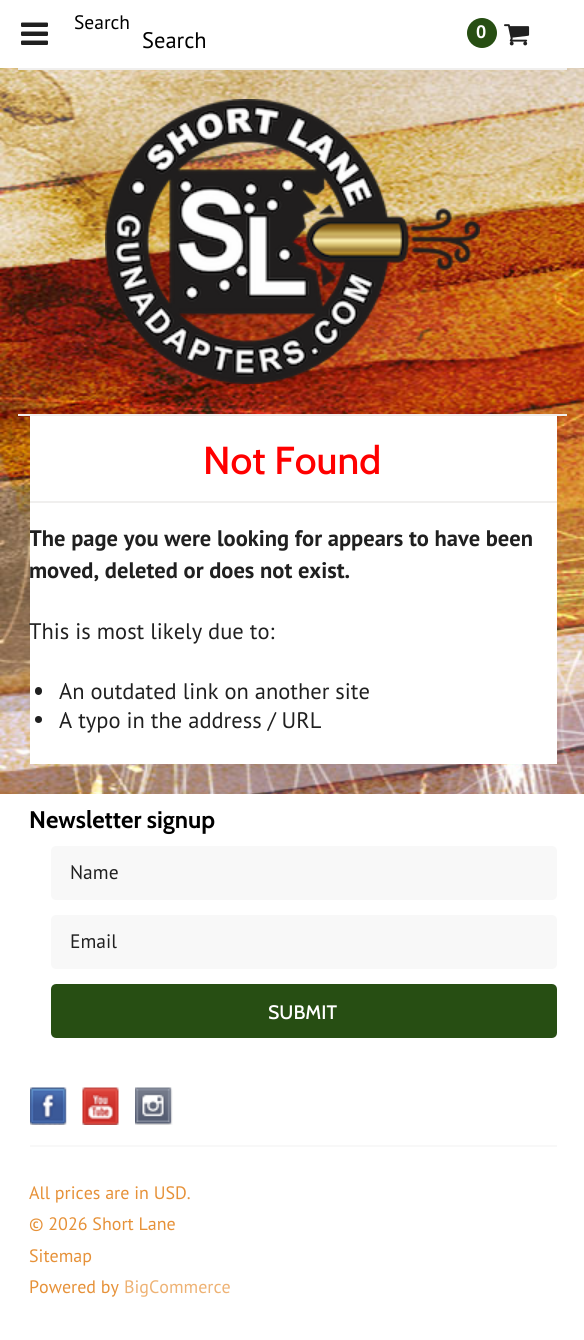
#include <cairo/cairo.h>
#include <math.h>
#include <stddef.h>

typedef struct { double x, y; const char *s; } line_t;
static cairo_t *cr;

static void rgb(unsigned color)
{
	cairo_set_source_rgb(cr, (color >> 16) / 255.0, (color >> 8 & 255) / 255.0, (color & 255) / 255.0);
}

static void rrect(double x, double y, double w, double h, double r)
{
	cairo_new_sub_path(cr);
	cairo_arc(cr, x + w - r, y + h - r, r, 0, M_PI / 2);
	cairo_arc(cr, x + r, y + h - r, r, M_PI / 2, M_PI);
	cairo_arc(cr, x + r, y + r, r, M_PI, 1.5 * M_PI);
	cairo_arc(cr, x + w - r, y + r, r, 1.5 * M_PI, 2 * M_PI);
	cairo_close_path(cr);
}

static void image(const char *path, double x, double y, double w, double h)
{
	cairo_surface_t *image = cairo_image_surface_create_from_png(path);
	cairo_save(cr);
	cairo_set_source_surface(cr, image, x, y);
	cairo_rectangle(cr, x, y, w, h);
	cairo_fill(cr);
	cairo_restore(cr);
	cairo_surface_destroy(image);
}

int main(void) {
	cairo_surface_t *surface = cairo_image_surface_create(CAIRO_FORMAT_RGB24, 584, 1340);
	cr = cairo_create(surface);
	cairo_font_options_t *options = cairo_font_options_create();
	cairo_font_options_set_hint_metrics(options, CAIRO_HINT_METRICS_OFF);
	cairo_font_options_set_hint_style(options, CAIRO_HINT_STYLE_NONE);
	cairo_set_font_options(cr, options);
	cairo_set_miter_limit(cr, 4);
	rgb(0xffffff);
	cairo_paint(cr);
	image("img/1.png", 0, 68, 584, 726);
	image("img/2.png", 21, 22, 27, 23);
	rgb(0x274e13);
	cairo_arc(cr, 482, 33, 15, 0, 2 * M_PI);
	cairo_fill(cr);
	image("img/3.png", 504, 24, 26, 22);
	rgb(0xf0efee);
	cairo_rectangle(cr, 18, 68, 549, 2);
	cairo_fill(cr);
	cairo_rectangle(cr, 18, 414, 549, 2);
	cairo_fill(cr);
	image("img/4.png", 105, 99, 375, 285);
	rgb(0xffffff);
	cairo_rectangle(cr, 30, 416, 527, 348);
	cairo_fill(cr);
	rgb(0xf0efee);
	cairo_rectangle(cr, 30, 501, 527, 2);
	cairo_fill(cr);
	rgb(0x202020);
	rrect(35, 687, 7, 8, 3.5);
	cairo_fill(cr);
	cairo_arc(cr, 38.5, 719.5, 3.5, 0, 2 * M_PI);
	cairo_fill(cr);
	rgb(0xf8f8f8);
	rrect(51, 846, 506, 54, 5);
	cairo_fill(cr);
	rrect(51, 915, 506, 54, 5);
	cairo_fill(cr);
	rgb(0x274e13);
	rrect(52.5, 985.5, 503, 51, 3.5);
	cairo_fill_preserve(cr);
	cairo_set_line_width(cr, 3);
	cairo_stroke(cr);
	image("img/5.png", 30, 1087, 37, 38);
	image("img/6.png", 82, 1087, 37, 38);
	image("img/7.png", 135, 1087, 38, 38);
	rgb(0xf8f8f8);
	cairo_rectangle(cr, 30, 1145, 527, 2);
	cairo_fill(cr);
	cairo_select_font_face(cr, "PT Sans", CAIRO_FONT_SLANT_NORMAL, CAIRO_FONT_WEIGHT_NORMAL);
	cairo_set_font_size(cr, 19.5);
	rgb(0x000000);
	cairo_move_to(cr, 74, 29);
	cairo_show_text(cr, "Search");
	cairo_set_font_size(cr, 22.5);
	cairo_move_to(cr, 142, 48);
	cairo_show_text(cr, "Search");
	cairo_select_font_face(cr, "PT Sans", CAIRO_FONT_SLANT_NORMAL, CAIRO_FONT_WEIGHT_BOLD);
	cairo_set_font_size(cr, 18);
	rgb(0xffffff);
	cairo_move_to(cr, 476, 38);
	cairo_show_text(cr, "0");
	cairo_select_font_face(cr, "Cabin Medium", CAIRO_FONT_SLANT_NORMAL, CAIRO_FONT_WEIGHT_NORMAL);
	cairo_set_font_size(cr, 39);
	rgb(0xff0000);
	cairo_move_to(cr, 203, 474);
	cairo_show_text(cr, "Not Found");
	cairo_save(cr);
	cairo_rectangle(cr, 30, 416, 527, 348);
	cairo_clip(cr);
	cairo_select_font_face(cr, "PT Sans", CAIRO_FONT_SLANT_NORMAL, CAIRO_FONT_WEIGHT_BOLD);
	cairo_set_font_size(cr, 22.5);
	rgb(0x202020);
	cairo_move_to(cr, 29, 546);
	cairo_show_text(cr, "The page you were looking for appears to have been");
	cairo_restore(cr);
	cairo_select_font_face(cr, "PT Sans", CAIRO_FONT_SLANT_NORMAL, CAIRO_FONT_WEIGHT_BOLD);
	cairo_set_font_size(cr, 22.5);
	rgb(0x202020);
	cairo_move_to(cr, 29, 578);
	cairo_show_text(cr, "moved, deleted or does not exist.");
	cairo_select_font_face(cr, "PT Sans", CAIRO_FONT_SLANT_NORMAL, CAIRO_FONT_WEIGHT_NORMAL);
	{
		static const line_t items[] = {
			{29, 639, "This is most likely due to:"},
			{59, 699, "An outdated link on another site"},
			{59, 728, "A typo in the address / URL"},
		};
		for (size_t i = 0; i < sizeof items / sizeof *items; i++) {
			cairo_move_to(cr, items[i].x, items[i].y);
			cairo_show_text(cr, items[i].s);
		}
	}
	cairo_select_font_face(cr, "Cabin", CAIRO_FONT_SLANT_NORMAL, CAIRO_FONT_WEIGHT_BOLD);
	cairo_set_font_size(cr, 24);
	rgb(0x000000);
	cairo_move_to(cr, 29, 828);
	cairo_show_text(cr, "Newsletter signup");
	cairo_select_font_face(cr, "PT Sans", CAIRO_FONT_SLANT_NORMAL, CAIRO_FONT_WEIGHT_NORMAL);
	cairo_set_font_size(cr, 19.5);
	rgb(0x202020);
	cairo_move_to(cr, 70, 879);
	cairo_show_text(cr, "Name");
	cairo_move_to(cr, 70, 948);
	cairo_show_text(cr, "Email");
	cairo_select_font_face(cr, "Cabin Medium", CAIRO_FONT_SLANT_NORMAL, CAIRO_FONT_WEIGHT_NORMAL);
	rgb(0xffffff);
	cairo_move_to(cr, 268, 1019);
	cairo_show_text(cr, "SUBMIT");
	cairo_select_font_face(cr, "PT Sans", CAIRO_FONT_SLANT_NORMAL, CAIRO_FONT_WEIGHT_NORMAL);
	cairo_set_font_size(cr, 18);
	rgb(0xe69138);
	{
		static const line_t items[] = {
			{29, 1199, "All prices are in USD."},
			{29, 1230, "© 2026 Short Lane"},
			{29, 1262, "Sitemap"},
			{29, 1293, "Powered by"},
		};
		for (size_t i = 0; i < sizeof items / sizeof *items; i++) {
			cairo_move_to(cr, items[i].x, items[i].y);
			cairo_show_text(cr, items[i].s);
		}
	}
	rgb(0xeeb274);
	cairo_move_to(cr, 124, 1293);
	cairo_show_text(cr, "BigCommerce");
	cairo_surface_write_to_png(surface, "page.png");
	cairo_font_options_destroy(options);
	cairo_destroy(cr);
	cairo_surface_destroy(surface);
	return 0;
}
